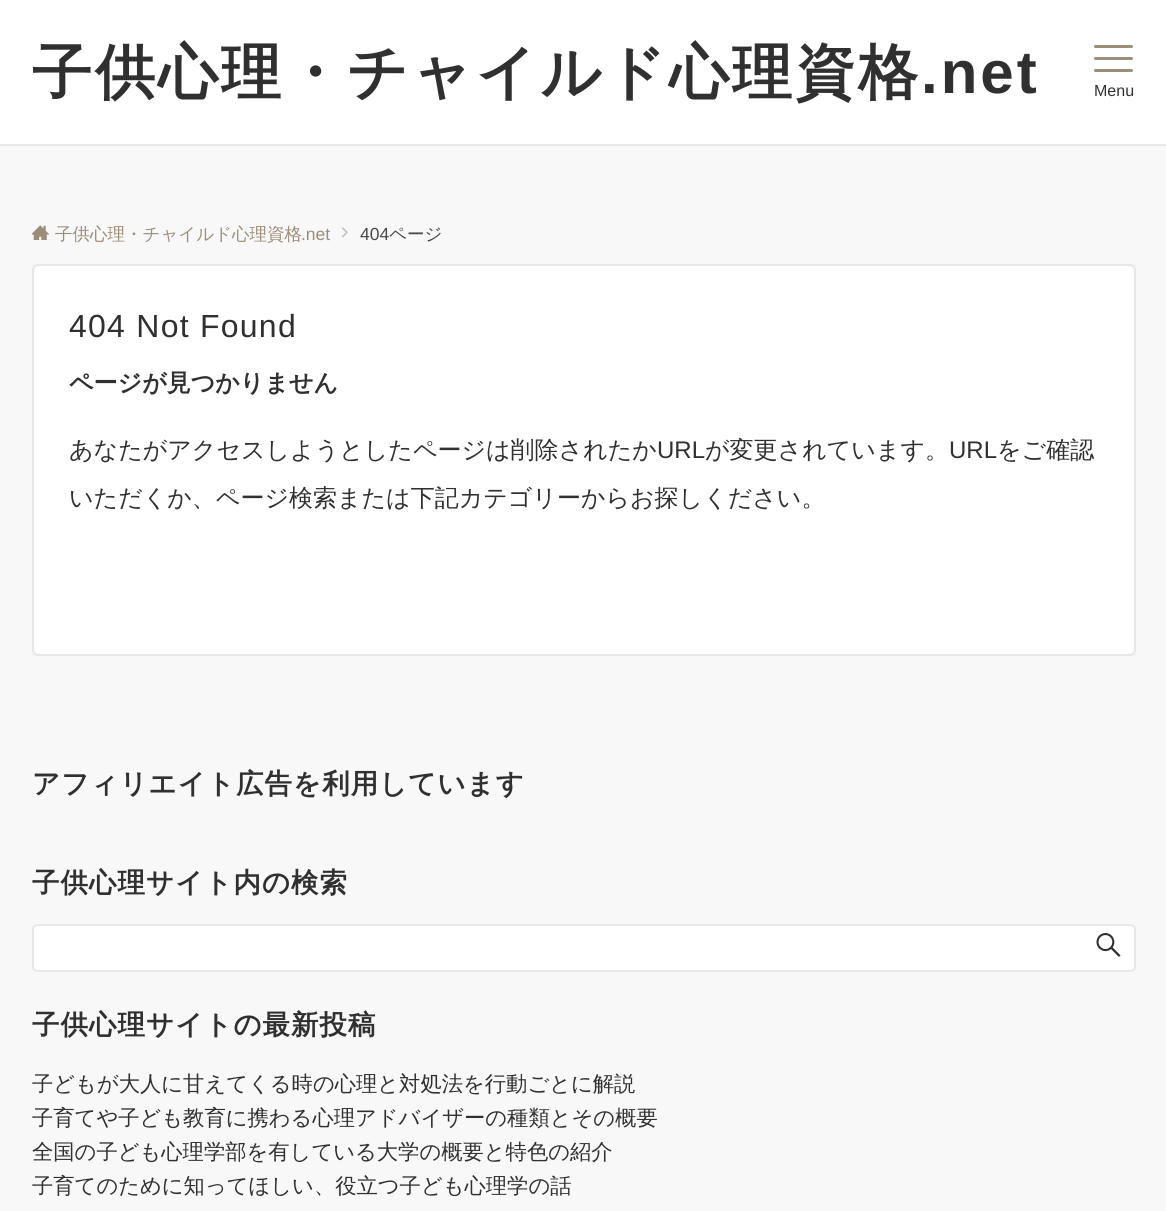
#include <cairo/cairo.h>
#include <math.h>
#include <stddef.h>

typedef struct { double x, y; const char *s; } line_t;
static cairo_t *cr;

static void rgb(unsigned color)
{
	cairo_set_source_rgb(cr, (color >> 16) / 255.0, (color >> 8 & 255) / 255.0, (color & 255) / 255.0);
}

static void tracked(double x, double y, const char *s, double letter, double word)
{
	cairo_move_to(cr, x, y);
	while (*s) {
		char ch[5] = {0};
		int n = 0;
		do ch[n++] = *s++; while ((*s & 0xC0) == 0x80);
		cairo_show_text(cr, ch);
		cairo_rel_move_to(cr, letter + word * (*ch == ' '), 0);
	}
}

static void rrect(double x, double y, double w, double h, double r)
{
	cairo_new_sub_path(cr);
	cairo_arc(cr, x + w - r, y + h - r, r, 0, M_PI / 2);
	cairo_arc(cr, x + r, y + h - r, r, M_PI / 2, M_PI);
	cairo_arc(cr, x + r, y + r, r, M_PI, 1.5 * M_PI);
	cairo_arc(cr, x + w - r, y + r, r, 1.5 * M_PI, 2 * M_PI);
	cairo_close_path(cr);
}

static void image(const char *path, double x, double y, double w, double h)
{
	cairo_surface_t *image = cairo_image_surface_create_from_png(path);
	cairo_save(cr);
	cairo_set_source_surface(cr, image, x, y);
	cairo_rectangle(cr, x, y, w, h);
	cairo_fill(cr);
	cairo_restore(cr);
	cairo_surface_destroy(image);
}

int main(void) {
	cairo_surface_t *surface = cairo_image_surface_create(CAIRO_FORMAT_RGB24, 1166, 1211);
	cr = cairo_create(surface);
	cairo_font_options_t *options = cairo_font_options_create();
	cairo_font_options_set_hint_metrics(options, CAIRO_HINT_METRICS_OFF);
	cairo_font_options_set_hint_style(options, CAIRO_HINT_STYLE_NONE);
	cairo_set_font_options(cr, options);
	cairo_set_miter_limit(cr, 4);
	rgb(0xf8f8f8);
	cairo_paint(cr);
	rgb(0xffffff);
	cairo_rectangle(cr, 0, 0, 1166, 144);
	cairo_fill(cr);
	rgb(0xe6e6e6);
	cairo_rectangle(cr, 0, 144, 1166, 2);
	cairo_fill(cr);
	rgb(0x9b8d77);
	rrect(1094, 45, 39, 3, 1.5);
	cairo_fill(cr);
	rrect(1094, 57, 39, 3, 1.5);
	cairo_fill(cr);
	rrect(1094, 69, 39, 3, 1.5);
	cairo_fill(cr);
	image("img/1.png", 32, 225, 17, 15);
	image("img/2.png", 341, 227, 7, 11);
	rgb(0xffffff);
	rrect(33, 265, 1102, 390, 5);
	cairo_fill_preserve(cr);
	rgb(0xe5e7e8);
	cairo_stroke(cr);
	rgb(0xffffff);
	rrect(33, 925, 1102, 46, 4);
	cairo_fill_preserve(cr);
	rgb(0xe5e7e8);
	cairo_stroke(cr);
	image("img/3.png", 1096, 933, 25, 24);
	cairo_select_font_face(cr, "WenQuanYi Zen Hei", CAIRO_FONT_SLANT_NORMAL, CAIRO_FONT_WEIGHT_BOLD);
	cairo_set_font_size(cr, 60);
	rgb(0x303030);
	tracked(32, 93, "子供心理・チャイルド心理資格", 3, 0);
	cairo_select_font_face(cr, "Liberation Sans", CAIRO_FONT_SLANT_NORMAL, CAIRO_FONT_WEIGHT_BOLD);
	tracked(921, 93, ".net", 3, 0);
	cairo_select_font_face(cr, "Liberation Sans", CAIRO_FONT_SLANT_NORMAL, CAIRO_FONT_WEIGHT_NORMAL);
	cairo_set_font_size(cr, 16);
	cairo_move_to(cr, 1094, 96);
	cairo_show_text(cr, "Menu");
	cairo_select_font_face(cr, "WenQuanYi Zen Hei Medium", CAIRO_FONT_SLANT_NORMAL, CAIRO_FONT_WEIGHT_NORMAL);
	cairo_set_font_size(cr, 17.5);
	rgb(0x9b8d77);
	cairo_move_to(cr, 55, 240);
	cairo_show_text(cr, "子供心理・チャイルド心理資格");
	cairo_select_font_face(cr, "Liberation Sans", CAIRO_FONT_SLANT_NORMAL, CAIRO_FONT_WEIGHT_NORMAL);
	cairo_move_to(cr, 301, 240);
	cairo_show_text(cr, ".net");
	rgb(0x484848);
	cairo_move_to(cr, 360, 240);
	cairo_show_text(cr, "404");
	cairo_select_font_face(cr, "WenQuanYi Zen Hei Medium", CAIRO_FONT_SLANT_NORMAL, CAIRO_FONT_WEIGHT_NORMAL);
	cairo_move_to(cr, 389, 240);
	cairo_show_text(cr, "ページ");
	cairo_select_font_face(cr, "Liberation Sans", CAIRO_FONT_SLANT_NORMAL, CAIRO_FONT_WEIGHT_NORMAL);
	cairo_set_font_size(cr, 32);
	rgb(0x303030);
	tracked(69, 337, "404 Not Found", 1.25, 0);
	cairo_select_font_face(cr, "WenQuanYi Zen Hei", CAIRO_FONT_SLANT_NORMAL, CAIRO_FONT_WEIGHT_BOLD);
	cairo_set_font_size(cr, 24);
	cairo_move_to(cr, 69, 391);
	cairo_show_text(cr, "ページが見つかりません");
	cairo_select_font_face(cr, "WenQuanYi Zen Hei Medium", CAIRO_FONT_SLANT_NORMAL, CAIRO_FONT_WEIGHT_NORMAL);
	cairo_move_to(cr, 69, 458);
	cairo_show_text(cr, "あなたがアクセスしようとしたページは削除されたか");
	cairo_select_font_face(cr, "Liberation Sans", CAIRO_FONT_SLANT_NORMAL, CAIRO_FONT_WEIGHT_NORMAL);
	cairo_move_to(cr, 657, 458);
	cairo_show_text(cr, "URL");
	cairo_select_font_face(cr, "WenQuanYi Zen Hei Medium", CAIRO_FONT_SLANT_NORMAL, CAIRO_FONT_WEIGHT_NORMAL);
	cairo_move_to(cr, 705, 458);
	cairo_show_text(cr, "が変更されています。");
	cairo_select_font_face(cr, "Liberation Sans", CAIRO_FONT_SLANT_NORMAL, CAIRO_FONT_WEIGHT_NORMAL);
	cairo_move_to(cr, 949, 458);
	cairo_show_text(cr, "URL");
	cairo_select_font_face(cr, "WenQuanYi Zen Hei Medium", CAIRO_FONT_SLANT_NORMAL, CAIRO_FONT_WEIGHT_NORMAL);
	cairo_move_to(cr, 997, 458);
	cairo_show_text(cr, "をご確認");
	cairo_move_to(cr, 69, 506);
	cairo_show_text(cr, "いただくか、ページ検索または下記カテゴリーからお探しください。");
	cairo_select_font_face(cr, "WenQuanYi Zen Hei", CAIRO_FONT_SLANT_NORMAL, CAIRO_FONT_WEIGHT_BOLD);
	cairo_set_font_size(cr, 27.4);
	{
		static const line_t items[] = {
			{32, 793, "アフィリエイト広告を利用しています"},
			{32, 892, "子供心理サイト内の検索"},
			{32, 1034, "子供心理サイトの最新投稿"},
		};
		for (size_t i = 0; i < sizeof items / sizeof *items; i++) {
			tracked(items[i].x, items[i].y, items[i].s, 1.1, 0);
		}
	}
	cairo_select_font_face(cr, "WenQuanYi Zen Hei Medium", CAIRO_FONT_SLANT_NORMAL, CAIRO_FONT_WEIGHT_NORMAL);
	cairo_set_font_size(cr, 21.3);
	{
		static const line_t items[] = {
			{32, 1091, "子どもが大人に甘えてくる時の心理と対処法を行動ごとに解説"},
			{32, 1125, "子育てや子ども教育に携わる心理アドバイザーの種類とその概要"},
			{32, 1159, "全国の子ども心理学部を有している大学の概要と特色の紹介"},
			{32, 1193, "子育てのために知ってほしい、役立つ子ども心理学の話"},
		};
		for (size_t i = 0; i < sizeof items / sizeof *items; i++) {
			cairo_move_to(cr, items[i].x, items[i].y);
			cairo_show_text(cr, items[i].s);
		}
	}
	cairo_surface_write_to_png(surface, "page.png");
	cairo_font_options_destroy(options);
	cairo_destroy(cr);
	cairo_surface_destroy(surface);
	return 0;
}
